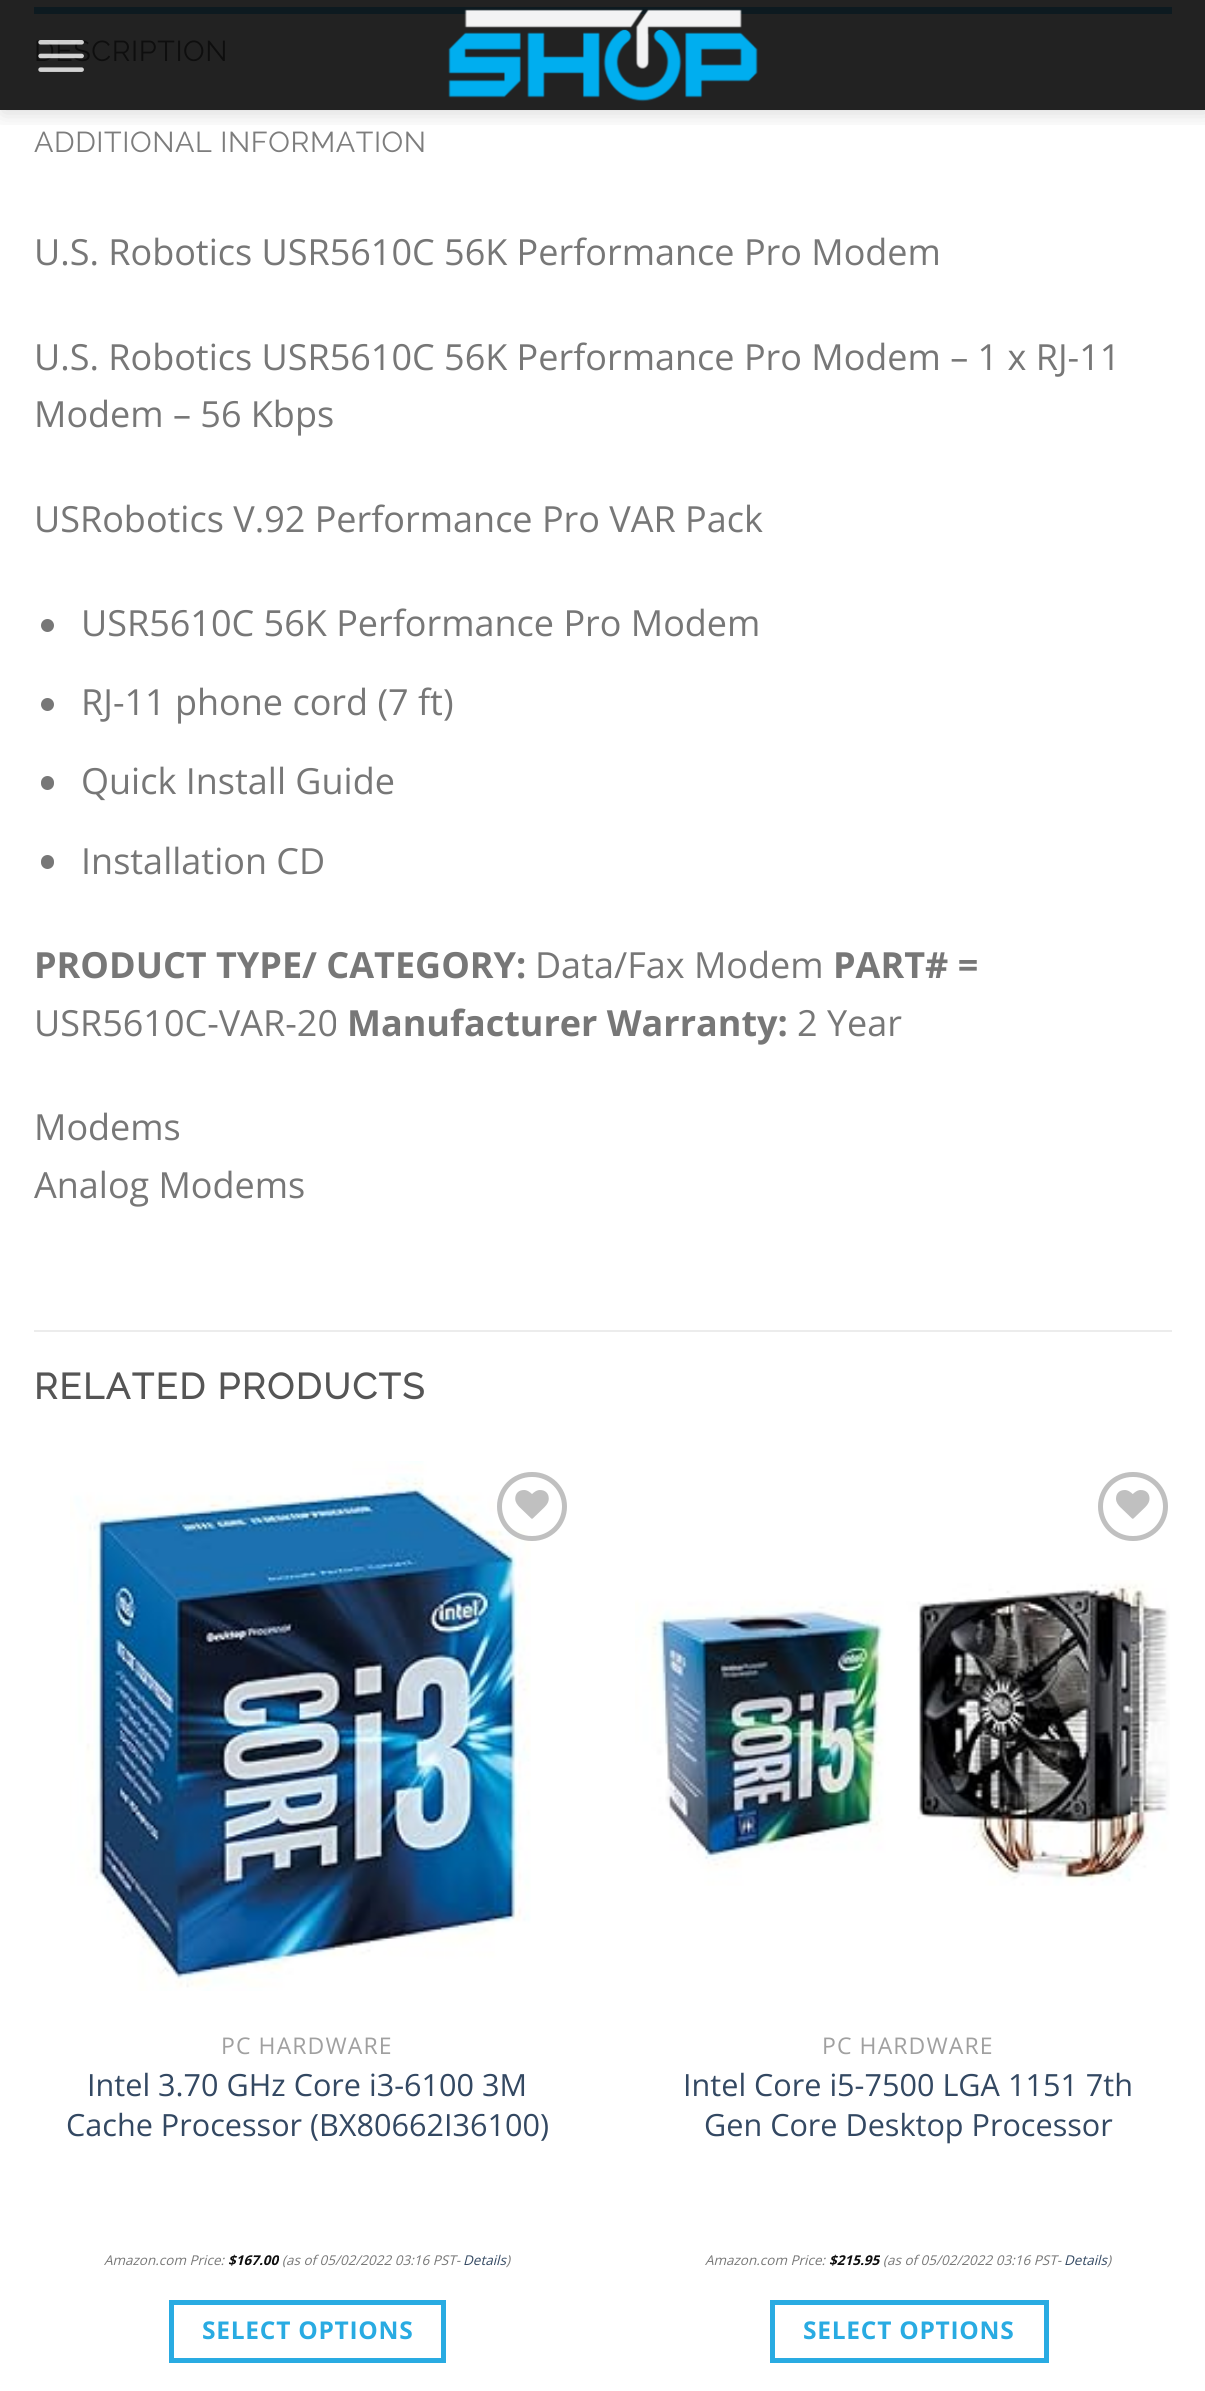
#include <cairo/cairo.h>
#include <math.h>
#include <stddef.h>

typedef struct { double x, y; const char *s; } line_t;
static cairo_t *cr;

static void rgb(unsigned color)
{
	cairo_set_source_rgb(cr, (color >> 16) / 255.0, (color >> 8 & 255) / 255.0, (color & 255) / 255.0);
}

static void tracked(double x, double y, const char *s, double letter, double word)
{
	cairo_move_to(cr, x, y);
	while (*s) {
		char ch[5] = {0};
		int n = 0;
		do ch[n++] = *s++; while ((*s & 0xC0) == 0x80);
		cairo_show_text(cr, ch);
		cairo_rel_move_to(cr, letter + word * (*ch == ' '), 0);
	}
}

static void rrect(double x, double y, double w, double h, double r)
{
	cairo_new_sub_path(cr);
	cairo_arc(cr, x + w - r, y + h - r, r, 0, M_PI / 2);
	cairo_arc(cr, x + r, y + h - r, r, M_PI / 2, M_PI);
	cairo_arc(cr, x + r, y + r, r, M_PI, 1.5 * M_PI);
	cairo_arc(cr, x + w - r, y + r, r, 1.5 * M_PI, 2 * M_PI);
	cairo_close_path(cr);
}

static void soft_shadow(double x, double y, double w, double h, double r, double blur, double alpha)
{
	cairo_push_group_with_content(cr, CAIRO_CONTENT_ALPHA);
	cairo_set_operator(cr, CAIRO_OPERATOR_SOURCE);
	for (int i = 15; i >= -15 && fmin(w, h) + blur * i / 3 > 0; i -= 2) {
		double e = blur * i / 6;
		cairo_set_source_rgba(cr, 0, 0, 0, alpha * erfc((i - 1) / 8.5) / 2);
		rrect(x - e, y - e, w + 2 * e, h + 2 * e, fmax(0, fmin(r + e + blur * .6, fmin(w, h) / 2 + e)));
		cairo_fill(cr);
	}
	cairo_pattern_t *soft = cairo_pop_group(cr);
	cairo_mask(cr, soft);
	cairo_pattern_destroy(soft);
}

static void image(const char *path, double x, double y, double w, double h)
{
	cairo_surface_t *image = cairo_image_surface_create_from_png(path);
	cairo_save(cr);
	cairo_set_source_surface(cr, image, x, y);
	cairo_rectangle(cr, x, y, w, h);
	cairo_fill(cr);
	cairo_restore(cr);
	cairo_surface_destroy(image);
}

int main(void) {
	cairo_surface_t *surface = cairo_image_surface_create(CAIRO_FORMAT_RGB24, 1205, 2391);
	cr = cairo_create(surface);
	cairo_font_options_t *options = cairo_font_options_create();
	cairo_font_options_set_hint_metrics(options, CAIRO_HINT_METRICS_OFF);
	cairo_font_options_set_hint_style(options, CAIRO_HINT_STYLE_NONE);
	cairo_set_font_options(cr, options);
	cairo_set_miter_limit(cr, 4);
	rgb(0xffffff);
	cairo_paint(cr);
	rgb(0x222222);
	cairo_rectangle(cr, 0, 0, 1205, 110);
	cairo_fill(cr);
	rgb(0x0d1a20);
	cairo_rectangle(cr, 34, 7, 1138, 7);
	cairo_fill(cr);
	cairo_save(cr);
	cairo_rectangle(cr, 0, 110, 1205, 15);
	cairo_clip(cr);
	rgb(0x000000);
	soft_shadow(2, 2, 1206, 111, 0, 11, 0.15);
	cairo_restore(cr);
	image("img/2.png", 448, 9, 310, 93);
	rgb(0x777777);
	cairo_arc(cr, 47.5, 625.5, 6.5, 0, 2 * M_PI);
	cairo_fill(cr);
	cairo_arc(cr, 47.5, 704.5, 6.5, 0, 2 * M_PI);
	cairo_fill(cr);
	rrect(41, 776, 13, 14, 6.5);
	cairo_fill(cr);
	rrect(41, 855, 13, 14, 6.5);
	cairo_fill(cr);
	rgb(0xececec);
	cairo_rectangle(cr, 34, 1330, 1138, 2);
	cairo_fill(cr);
	image("img/3.png", 70, 1461, 461, 530);
	rrect(499.5, 1474.5, 65, 64, 32);
	rgb(0xc0c0c0);
	cairo_set_line_width(cr, 5);
	cairo_stroke(cr);
	image("img/4.png", 515, 1490, 34, 29);
	cairo_rectangle(cr, 171.5, 2302.5, 272, 58);
	rgb(0x29abe2);
	cairo_stroke(cr);
	rrect(1100.5, 1474.5, 65, 64, 32);
	rgb(0xc0c0c0);
	cairo_stroke(cr);
	image("img/5.png", 1116, 1490, 34, 29);
	image("img/6.png", 635, 1580, 535, 306);
	cairo_rectangle(cr, 772.5, 2302.5, 274, 58);
	rgb(0x29abe2);
	cairo_stroke(cr);
	cairo_select_font_face(cr, "Raleway Thin", CAIRO_FONT_SLANT_NORMAL, CAIRO_FONT_WEIGHT_NORMAL);
	cairo_set_font_size(cr, 28.75);
	rgb(0x0e0e0e);
	tracked(34, 61, "DESCRIPTION", 0.6, 0);
	image("img/1.png", 38, 40, 46, 32);
	rgb(0x7d7d7d);
	tracked(34, 152, "ADDITIONAL INFORMATION", 0.6, 0);
	cairo_select_font_face(cr, "Open Sans", CAIRO_FONT_SLANT_NORMAL, CAIRO_FONT_WEIGHT_NORMAL);
	cairo_set_font_size(cr, 36);
	rgb(0x777777);
	{
		static const line_t items[] = {
			{34, 265, "U.S. Robotics USR5610C 56K Performance Pro Modem"},
			{34, 370, "U.S. Robotics USR5610C 56K Performance Pro Modem – 1 x RJ-11"},
			{34, 427, "Modem – 56 Kbps"},
			{34, 532, "USRobotics V.92 Performance Pro VAR Pack"},
			{81, 636, "USR5610C 56K Performance Pro Modem"},
			{81, 715, "RJ-11 phone cord (7 ft)"},
			{81, 794, "Quick Install Guide"},
			{81, 874, "Installation CD"},
		};
		for (size_t i = 0; i < sizeof items / sizeof *items; i++) {
			cairo_move_to(cr, items[i].x, items[i].y);
			cairo_show_text(cr, items[i].s);
		}
	}
	cairo_select_font_face(cr, "Open Sans", CAIRO_FONT_SLANT_NORMAL, CAIRO_FONT_WEIGHT_BOLD);
	cairo_move_to(cr, 34, 978);
	cairo_show_text(cr, "PRODUCT TYPE/ CATEGORY:");
	cairo_select_font_face(cr, "Open Sans", CAIRO_FONT_SLANT_NORMAL, CAIRO_FONT_WEIGHT_NORMAL);
	cairo_move_to(cr, 535, 978);
	cairo_show_text(cr, "Data/Fax Modem");
	cairo_select_font_face(cr, "Open Sans", CAIRO_FONT_SLANT_NORMAL, CAIRO_FONT_WEIGHT_BOLD);
	cairo_move_to(cr, 833, 978);
	cairo_show_text(cr, "PART# =");
	cairo_select_font_face(cr, "Open Sans", CAIRO_FONT_SLANT_NORMAL, CAIRO_FONT_WEIGHT_NORMAL);
	cairo_move_to(cr, 34, 1036);
	cairo_show_text(cr, "USR5610C-VAR-20");
	cairo_select_font_face(cr, "Open Sans", CAIRO_FONT_SLANT_NORMAL, CAIRO_FONT_WEIGHT_BOLD);
	cairo_move_to(cr, 347, 1036);
	cairo_show_text(cr, "Manufacturer Warranty:");
	cairo_select_font_face(cr, "Open Sans", CAIRO_FONT_SLANT_NORMAL, CAIRO_FONT_WEIGHT_NORMAL);
	{
		static const line_t items[] = {
			{797, 1036, "2 Year"},
			{34, 1140, "Modems"},
			{34, 1198, "Analog Modems"},
		};
		for (size_t i = 0; i < sizeof items / sizeof *items; i++) {
			cairo_move_to(cr, items[i].x, items[i].y);
			cairo_show_text(cr, items[i].s);
		}
	}
	cairo_select_font_face(cr, "Raleway", CAIRO_FONT_SLANT_NORMAL, CAIRO_FONT_WEIGHT_BOLD);
	rgb(0x555555);
	tracked(34, 1399, "RELATED PRODUCTS", 1.75, 0);
	cairo_select_font_face(cr, "Open Sans", CAIRO_FONT_SLANT_NORMAL, CAIRO_FONT_WEIGHT_NORMAL);
	cairo_set_font_size(cr, 23);
	rgb(0xa0a0a0);
	tracked(221, 2054, "PC HARDWARE", 1.1, 0);
	cairo_set_font_size(cr, 30.6);
	rgb(0x334862);
	cairo_move_to(cr, 87, 2096);
	cairo_show_text(cr, "Intel 3.70 GHz Core i3-6100 3M");
	cairo_move_to(cr, 66, 2136);
	cairo_show_text(cr, "Cache Processor (BX80662I36100)");
	cairo_select_font_face(cr, "Open Sans", CAIRO_FONT_SLANT_ITALIC, CAIRO_FONT_WEIGHT_NORMAL);
	cairo_set_font_size(cr, 13.5);
	rgb(0x777777);
	cairo_move_to(cr, 104, 2265);
	cairo_show_text(cr, "Amazon.com Price:");
	cairo_select_font_face(cr, "Open Sans", CAIRO_FONT_SLANT_ITALIC, CAIRO_FONT_WEIGHT_BOLD);
	rgb(0x0e0e0e);
	cairo_move_to(cr, 228, 2265);
	cairo_show_text(cr, "$167.00");
	cairo_select_font_face(cr, "Open Sans", CAIRO_FONT_SLANT_ITALIC, CAIRO_FONT_WEIGHT_NORMAL);
	rgb(0x777777);
	cairo_move_to(cr, 282, 2265);
	cairo_show_text(cr, "(as of 05/02/2022 03:16 PST-");
	rgb(0x334862);
	cairo_move_to(cr, 463, 2265);
	cairo_show_text(cr, "Details");
	rgb(0x777777);
	cairo_move_to(cr, 506, 2265);
	cairo_show_text(cr, ")");
	cairo_select_font_face(cr, "Open Sans", CAIRO_FONT_SLANT_NORMAL, CAIRO_FONT_WEIGHT_BOLD);
	cairo_set_font_size(cr, 24.5);
	rgb(0x29abe2);
	tracked(202, 2339, "SELECT OPTIONS", 0.75, 0);
	cairo_select_font_face(cr, "Open Sans", CAIRO_FONT_SLANT_NORMAL, CAIRO_FONT_WEIGHT_NORMAL);
	cairo_set_font_size(cr, 23);
	rgb(0xa0a0a0);
	tracked(822, 2054, "PC HARDWARE", 1.1, 0);
	cairo_set_font_size(cr, 30.6);
	rgb(0x334862);
	cairo_move_to(cr, 683, 2096);
	cairo_show_text(cr, "Intel Core i5-7500 LGA 1151 7th");
	cairo_move_to(cr, 704, 2136);
	cairo_show_text(cr, "Gen Core Desktop Processor");
	cairo_select_font_face(cr, "Open Sans", CAIRO_FONT_SLANT_ITALIC, CAIRO_FONT_WEIGHT_NORMAL);
	cairo_set_font_size(cr, 13.5);
	rgb(0x777777);
	cairo_move_to(cr, 705, 2265);
	cairo_show_text(cr, "Amazon.com Price:");
	cairo_select_font_face(cr, "Open Sans", CAIRO_FONT_SLANT_ITALIC, CAIRO_FONT_WEIGHT_BOLD);
	rgb(0x0e0e0e);
	cairo_move_to(cr, 829, 2265);
	cairo_show_text(cr, "$215.95");
	cairo_select_font_face(cr, "Open Sans", CAIRO_FONT_SLANT_ITALIC, CAIRO_FONT_WEIGHT_NORMAL);
	rgb(0x777777);
	cairo_move_to(cr, 883, 2265);
	cairo_show_text(cr, "(as of 05/02/2022 03:16 PST-");
	rgb(0x334862);
	cairo_move_to(cr, 1064, 2265);
	cairo_show_text(cr, "Details");
	rgb(0x777777);
	cairo_move_to(cr, 1107, 2265);
	cairo_show_text(cr, ")");
	cairo_select_font_face(cr, "Open Sans", CAIRO_FONT_SLANT_NORMAL, CAIRO_FONT_WEIGHT_BOLD);
	cairo_set_font_size(cr, 24.5);
	rgb(0x29abe2);
	tracked(803, 2339, "SELECT OPTIONS", 0.75, 0);
	cairo_surface_write_to_png(surface, "page.png");
	cairo_font_options_destroy(options);
	cairo_destroy(cr);
	cairo_surface_destroy(surface);
	return 0;
}
